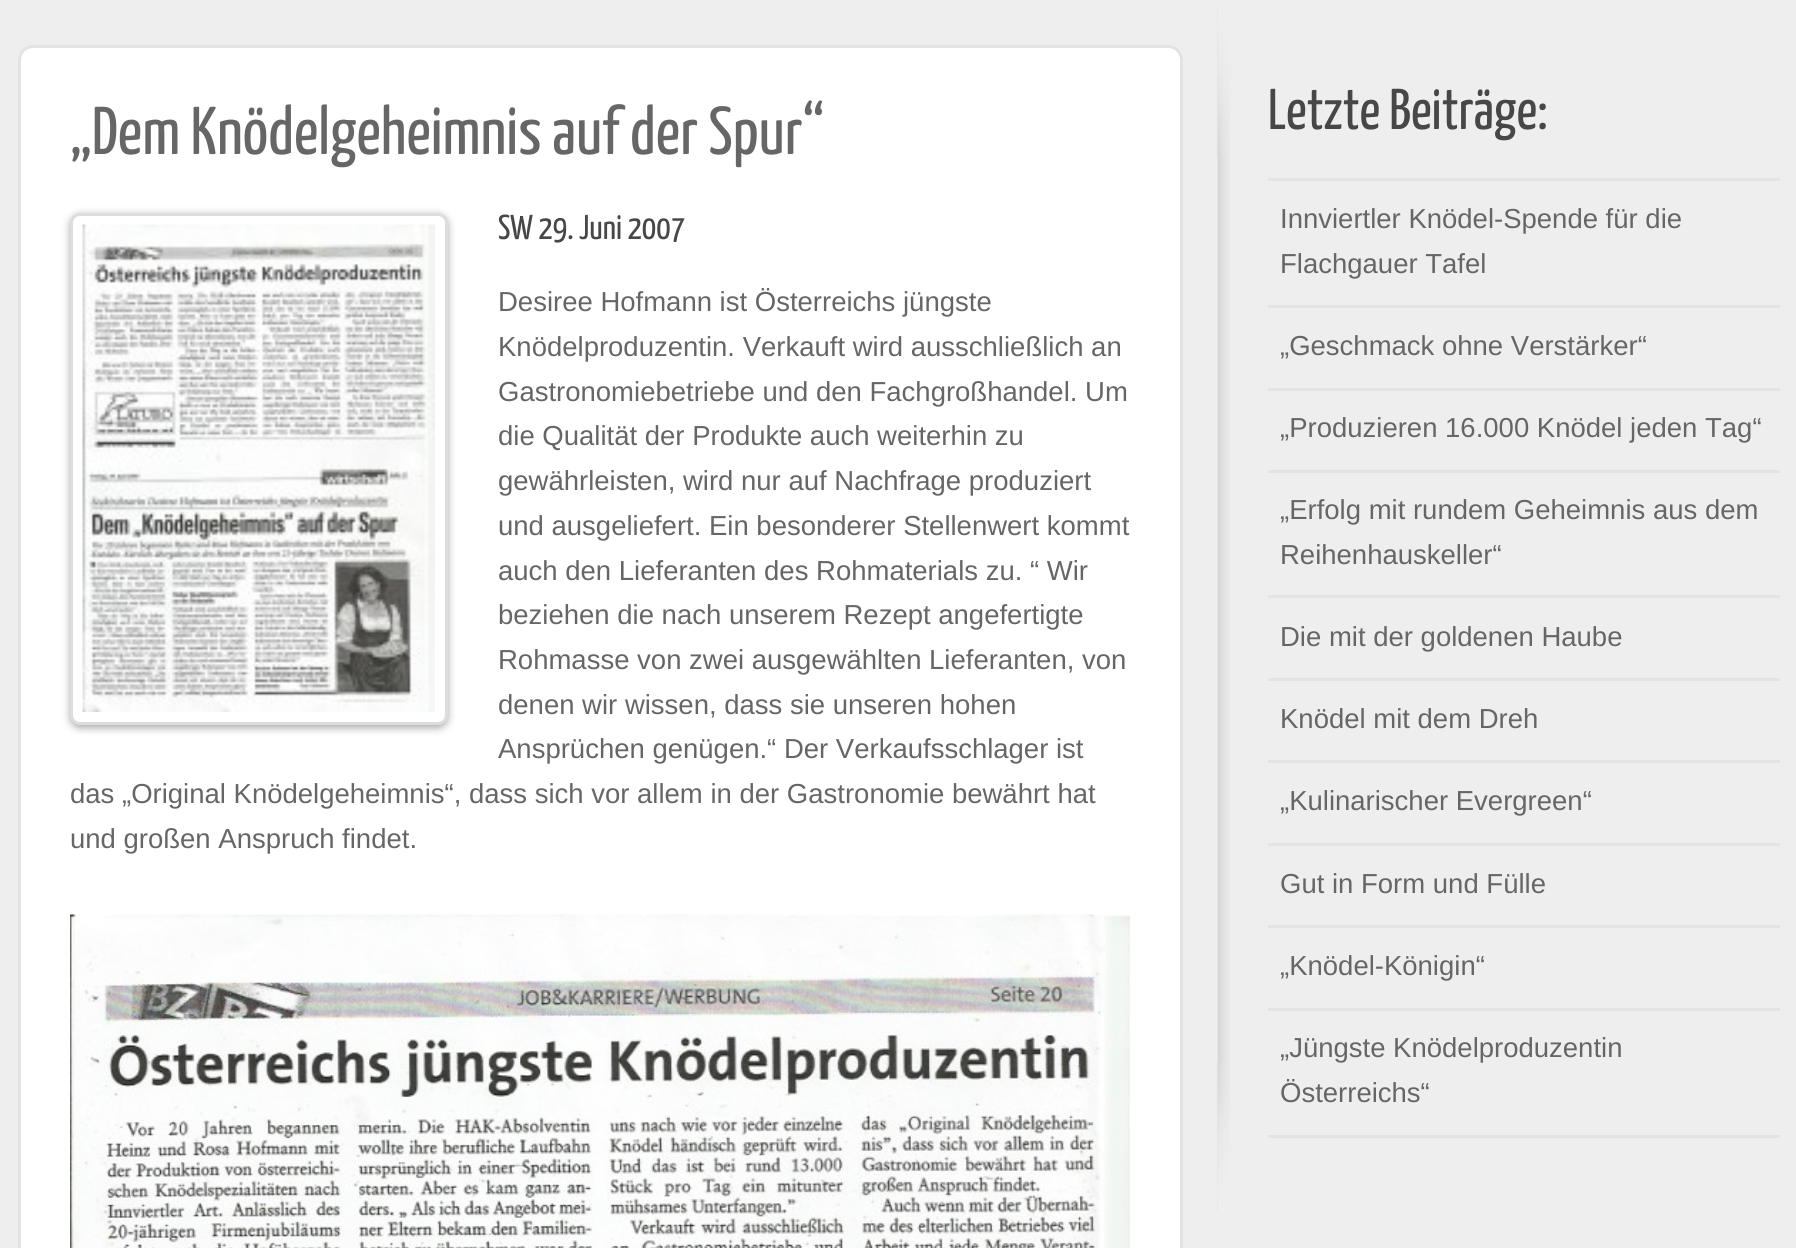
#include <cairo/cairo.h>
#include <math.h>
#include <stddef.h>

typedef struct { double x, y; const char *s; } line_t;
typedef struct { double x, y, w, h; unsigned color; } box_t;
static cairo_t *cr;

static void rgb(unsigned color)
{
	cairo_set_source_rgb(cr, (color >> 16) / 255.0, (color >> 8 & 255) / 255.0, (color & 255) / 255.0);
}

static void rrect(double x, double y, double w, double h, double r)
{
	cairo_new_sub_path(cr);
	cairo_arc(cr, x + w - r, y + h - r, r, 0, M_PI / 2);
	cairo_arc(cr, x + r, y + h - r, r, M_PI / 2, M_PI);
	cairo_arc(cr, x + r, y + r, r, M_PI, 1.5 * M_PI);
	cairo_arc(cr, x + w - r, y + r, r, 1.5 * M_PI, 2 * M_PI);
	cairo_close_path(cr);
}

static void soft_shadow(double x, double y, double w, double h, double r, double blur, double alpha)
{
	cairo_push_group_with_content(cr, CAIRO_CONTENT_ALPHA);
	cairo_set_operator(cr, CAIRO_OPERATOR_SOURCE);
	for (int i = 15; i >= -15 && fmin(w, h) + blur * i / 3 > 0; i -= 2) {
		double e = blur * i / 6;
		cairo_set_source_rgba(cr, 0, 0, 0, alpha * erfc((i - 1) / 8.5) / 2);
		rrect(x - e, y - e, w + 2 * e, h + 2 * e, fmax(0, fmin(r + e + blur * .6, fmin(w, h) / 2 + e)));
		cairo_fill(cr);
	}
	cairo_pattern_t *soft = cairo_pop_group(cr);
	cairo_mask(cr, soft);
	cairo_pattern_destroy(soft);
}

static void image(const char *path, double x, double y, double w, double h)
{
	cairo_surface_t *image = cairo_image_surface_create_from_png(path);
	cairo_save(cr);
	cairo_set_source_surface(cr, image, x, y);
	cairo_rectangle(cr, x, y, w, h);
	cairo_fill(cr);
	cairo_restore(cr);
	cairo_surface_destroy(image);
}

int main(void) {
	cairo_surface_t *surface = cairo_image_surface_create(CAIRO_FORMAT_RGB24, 1796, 1248);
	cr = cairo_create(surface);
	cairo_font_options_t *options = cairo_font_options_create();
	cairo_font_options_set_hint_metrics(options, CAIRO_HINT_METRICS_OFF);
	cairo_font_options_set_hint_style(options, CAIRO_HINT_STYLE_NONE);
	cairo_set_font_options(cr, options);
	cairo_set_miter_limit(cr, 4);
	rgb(0xeeeeee);
	cairo_paint(cr);
	rgb(0xffffff);
	rrect(19.5, 46.5, 1162, 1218, 13.5);
	cairo_fill_preserve(cr);
	rgb(0xe3e3e3);
	cairo_set_line_width(cr, 3);
	cairo_stroke(cr);
	rgb(0xaaaaaa);
	soft_shadow(70, 215, 378, 513, 10, 4, 1);
	rgb(0xffffff);
	rrect(71.5, 214.5, 375, 509, 8.5);
	cairo_fill_preserve(cr);
	rgb(0xdddddd);
	cairo_stroke(cr);
	image("img/1.png", 82, 224, 353, 488);
	image("img/2.png", 70, 914, 1060, 334);
	image("img/3.png", 1217, 7, 13, 1205);
	image("img/4.png", 1217, 7, 13, 150);
	{
		static const box_t items[] = {
			{1268, 178, 512, 3, 0xe3e3e3},
			{1268, 305, 512, 3, 0xe3e3e3},
			{1268, 388, 512, 3, 0xe3e3e3},
			{1268, 470, 512, 3, 0xe3e3e3},
			{1268, 595, 512, 3, 0xe3e3e3},
			{1268, 678, 512, 3, 0xe3e3e3},
			{1268, 760, 512, 3, 0xe3e3e3},
			{1268, 843, 512, 3, 0xe3e3e3},
			{1268, 925, 512, 3, 0xe3e3e3},
			{1268, 1008, 512, 3, 0xe3e3e3},
			{1268, 1135, 512, 3, 0xe3e3e3},
		};
		for (size_t i = 0; i < sizeof items / sizeof *items; i++) {
			rgb(items[i].color);
			cairo_rectangle(cr, items[i].x, items[i].y, items[i].w, items[i].h);
			cairo_fill(cr);
		}
	}
	image("img/5.png", 1217, 1062, 13, 150);
	cairo_select_font_face(cr, "Yanone Kaffeesatz ExtraLight", CAIRO_FONT_SLANT_NORMAL, CAIRO_FONT_WEIGHT_NORMAL);
	cairo_set_font_size(cr, 67.5);
	rgb(0x666666);
	cairo_move_to(cr, 70, 154);
	cairo_show_text(cr, "„Dem Knödelgeheimnis auf der Spur“");
	cairo_set_font_size(cr, 34.5);
	rgb(0x474747);
	cairo_move_to(cr, 498, 239);
	cairo_show_text(cr, "SW 29. Juni 2007");
	cairo_select_font_face(cr, "Liberation Sans", CAIRO_FONT_SLANT_NORMAL, CAIRO_FONT_WEIGHT_NORMAL);
	cairo_set_font_size(cr, 27.5);
	rgb(0x666666);
	{
		static const line_t items[] = {
			{498, 311, "Desiree Hofmann ist Österreichs jüngste"},
			{498, 356, "Knödelproduzentin. Verkauft wird ausschließlich an"},
			{498, 401, "Gastronomiebetriebe und den Fachgroßhandel. Um"},
			{498, 445, "die Qualität der Produkte auch weiterhin zu"},
			{498, 490, "gewährleisten, wird nur auf Nachfrage produziert"},
			{498, 535, "und ausgeliefert. Ein besonderer Stellenwert kommt"},
			{498, 580, "auch den Lieferanten des Rohmaterials zu. “ Wir"},
			{498, 624, "beziehen die nach unserem Rezept angefertigte"},
			{498, 669, "Rohmasse von zwei ausgewählten Lieferanten, von"},
			{498, 714, "denen wir wissen, dass sie unseren hohen"},
			{498, 758, "Ansprüchen genügen.“ Der Verkaufsschlager ist"},
			{70, 803, "das „Original Knödelgeheimnis“, dass sich vor allem in der Gastronomie bewährt hat"},
			{70, 848, "und großen Anspruch findet."},
		};
		for (size_t i = 0; i < sizeof items / sizeof *items; i++) {
			cairo_move_to(cr, items[i].x, items[i].y);
			cairo_show_text(cr, items[i].s);
		}
	}
	cairo_select_font_face(cr, "Yanone Kaffeesatz ExtraLight", CAIRO_FONT_SLANT_NORMAL, CAIRO_FONT_WEIGHT_NORMAL);
	cairo_set_font_size(cr, 57.5);
	rgb(0x474747);
	cairo_move_to(cr, 1268, 129);
	cairo_show_text(cr, "Letzte Beiträge:");
	cairo_select_font_face(cr, "Liberation Sans", CAIRO_FONT_SLANT_NORMAL, CAIRO_FONT_WEIGHT_NORMAL);
	cairo_set_font_size(cr, 27.5);
	rgb(0x666666);
	{
		static const line_t items[] = {
			{1280, 228, "Innviertler Knödel-Spende für die"},
			{1280, 273, "Flachgauer Tafel"},
			{1280, 355, "„Geschmack ohne Verstärker“"},
			{1280, 437, "„Produzieren 16.000 Knödel jeden Tag“"},
			{1280, 519, "„Erfolg mit rundem Geheimnis aus dem"},
			{1280, 564, "Reihenhauskeller“"},
			{1280, 646, "Die mit der goldenen Haube"},
			{1280, 728, "Knödel mit dem Dreh"},
			{1280, 810, "„Kulinarischer Evergreen“"},
			{1280, 893, "Gut in Form und Fülle"},
			{1280, 975, "„Knödel-Königin“"},
			{1280, 1057, "„Jüngste Knödelproduzentin"},
			{1280, 1102, "Österreichs“"},
		};
		for (size_t i = 0; i < sizeof items / sizeof *items; i++) {
			cairo_move_to(cr, items[i].x, items[i].y);
			cairo_show_text(cr, items[i].s);
		}
	}
	cairo_surface_write_to_png(surface, "page.png");
	cairo_font_options_destroy(options);
	cairo_destroy(cr);
	cairo_surface_destroy(surface);
	return 0;
}
